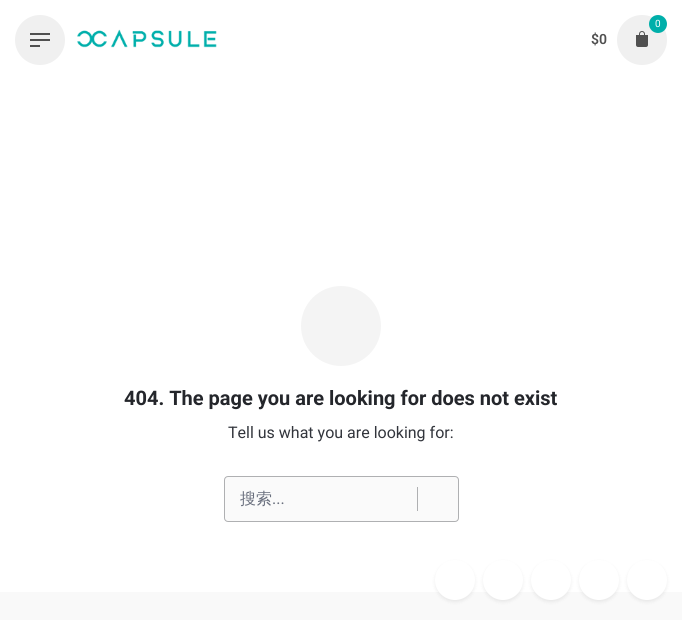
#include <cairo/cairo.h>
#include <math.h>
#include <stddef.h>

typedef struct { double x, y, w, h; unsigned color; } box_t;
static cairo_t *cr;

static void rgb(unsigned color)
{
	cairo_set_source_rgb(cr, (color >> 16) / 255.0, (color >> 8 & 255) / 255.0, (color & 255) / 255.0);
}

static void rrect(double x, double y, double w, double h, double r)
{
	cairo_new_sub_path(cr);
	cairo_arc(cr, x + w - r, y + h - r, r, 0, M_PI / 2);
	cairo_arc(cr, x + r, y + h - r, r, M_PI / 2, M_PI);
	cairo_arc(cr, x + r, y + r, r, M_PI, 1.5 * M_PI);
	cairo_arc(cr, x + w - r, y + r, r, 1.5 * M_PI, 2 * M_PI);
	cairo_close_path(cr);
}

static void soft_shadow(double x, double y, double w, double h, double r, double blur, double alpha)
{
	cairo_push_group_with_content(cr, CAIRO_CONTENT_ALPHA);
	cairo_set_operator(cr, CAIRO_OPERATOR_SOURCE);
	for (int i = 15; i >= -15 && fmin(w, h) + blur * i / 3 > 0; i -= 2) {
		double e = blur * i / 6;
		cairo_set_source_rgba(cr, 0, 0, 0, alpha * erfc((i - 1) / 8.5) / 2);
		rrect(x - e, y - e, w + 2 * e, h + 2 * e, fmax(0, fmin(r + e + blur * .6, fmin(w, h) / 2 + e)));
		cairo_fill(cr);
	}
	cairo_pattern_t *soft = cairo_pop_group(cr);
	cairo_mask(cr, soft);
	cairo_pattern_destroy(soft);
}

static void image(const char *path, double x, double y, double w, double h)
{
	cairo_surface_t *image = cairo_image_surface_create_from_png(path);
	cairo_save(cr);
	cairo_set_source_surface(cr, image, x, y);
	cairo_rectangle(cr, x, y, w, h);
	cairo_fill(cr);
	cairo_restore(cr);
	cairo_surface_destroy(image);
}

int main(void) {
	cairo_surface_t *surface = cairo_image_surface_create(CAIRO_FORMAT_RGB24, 682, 620);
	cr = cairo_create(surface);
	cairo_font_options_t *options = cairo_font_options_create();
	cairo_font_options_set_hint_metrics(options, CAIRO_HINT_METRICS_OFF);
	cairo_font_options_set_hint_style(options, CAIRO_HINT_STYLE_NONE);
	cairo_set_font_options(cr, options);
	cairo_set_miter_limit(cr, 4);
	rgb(0xffffff);
	cairo_paint(cr);
	rgb(0xf0f0f0);
	cairo_arc(cr, 40, 40, 25, 0, 2 * M_PI);
	cairo_fill(cr);
	{
		static const box_t items[] = {
			{30, 33, 20, 2, 0x505050},
			{30, 39, 20, 2, 0x505050},
			{30, 45, 10, 2, 0x505050},
		};
		for (size_t i = 0; i < sizeof items / sizeof *items; i++) {
			rgb(items[i].color);
			cairo_rectangle(cr, items[i].x, items[i].y, items[i].w, items[i].h);
			cairo_fill(cr);
		}
	}
	image("img/1.png", 77, 29, 140, 19);
	rgb(0xf0f0f0);
	cairo_arc(cr, 642, 40, 25, 0, 2 * M_PI);
	cairo_fill(cr);
	rgb(0x00afaa);
	cairo_arc(cr, 658, 24, 9, 0, 2 * M_PI);
	cairo_fill(cr);
	image("img/2.png", 636, 31, 12, 16);
	rgb(0xf4f4f4);
	cairo_arc(cr, 341, 326, 40, 0, 2 * M_PI);
	cairo_fill(cr);
	rgb(0xfafafa);
	rrect(224.5, 476.5, 234, 45, 3.5);
	cairo_fill_preserve(cr);
	rgb(0xafb0b2);
	cairo_set_line_width(cr, 1);
	cairo_stroke(cr);
	cairo_rectangle(cr, 417, 487, 1, 24);
	cairo_fill(cr);
	rgb(0xf9f9f9);
	cairo_rectangle(cr, 0, 592, 682, 28);
	cairo_fill(cr);
	rgb(0x000000);
	soft_shadow(435, 562, 40, 40, 20, 2, 0.07);
	rgb(0xffffff);
	cairo_arc(cr, 455, 580, 19, 0, 2 * M_PI);
	cairo_fill_preserve(cr);
	cairo_set_line_width(cr, 2);
	cairo_stroke(cr);
	rgb(0x000000);
	soft_shadow(483, 562, 40, 40, 20, 2, 0.07);
	rgb(0xffffff);
	cairo_arc(cr, 503, 580, 19, 0, 2 * M_PI);
	cairo_fill_preserve(cr);
	cairo_stroke(cr);
	rgb(0x000000);
	soft_shadow(531, 562, 40, 40, 20, 2, 0.07);
	rgb(0xffffff);
	cairo_arc(cr, 551, 580, 19, 0, 2 * M_PI);
	cairo_fill_preserve(cr);
	cairo_stroke(cr);
	rgb(0x000000);
	soft_shadow(579, 562, 40, 40, 20, 2, 0.07);
	rgb(0xffffff);
	cairo_arc(cr, 599, 580, 19, 0, 2 * M_PI);
	cairo_fill_preserve(cr);
	cairo_stroke(cr);
	rgb(0x000000);
	soft_shadow(627, 562, 40, 40, 20, 2, 0.07);
	rgb(0xffffff);
	cairo_arc(cr, 647, 580, 19, 0, 2 * M_PI);
	cairo_fill_preserve(cr);
	cairo_stroke(cr);
	cairo_select_font_face(cr, "Roboto", CAIRO_FONT_SLANT_NORMAL, CAIRO_FONT_WEIGHT_NORMAL);
	cairo_set_font_size(cr, 10);
	cairo_move_to(cr, 655, 27);
	cairo_show_text(cr, "0");
	cairo_select_font_face(cr, "Roboto SemiBold", CAIRO_FONT_SLANT_NORMAL, CAIRO_FONT_WEIGHT_NORMAL);
	cairo_set_font_size(cr, 14);
	rgb(0x505050);
	cairo_move_to(cr, 591, 44);
	cairo_show_text(cr, "$0");
	cairo_select_font_face(cr, "Roboto", CAIRO_FONT_SLANT_NORMAL, CAIRO_FONT_WEIGHT_BOLD);
	cairo_set_font_size(cr, 20);
	rgb(0x24262b);
	cairo_move_to(cr, 124, 405);
	cairo_show_text(cr, "404. The page you are looking for does not exist");
	cairo_select_font_face(cr, "Roboto", CAIRO_FONT_SLANT_NORMAL, CAIRO_FONT_WEIGHT_NORMAL);
	cairo_set_font_size(cr, 16);
	rgb(0x32353c);
	cairo_move_to(cr, 228, 438);
	cairo_show_text(cr, "Tell us what you are looking for:");
	cairo_select_font_face(cr, "WenQuanYi Zen Hei Medium", CAIRO_FONT_SLANT_NORMAL, CAIRO_FONT_WEIGHT_NORMAL);
	rgb(0x6a707e);
	cairo_move_to(cr, 240, 504);
	cairo_show_text(cr, "搜索");
	cairo_select_font_face(cr, "Roboto", CAIRO_FONT_SLANT_NORMAL, CAIRO_FONT_WEIGHT_NORMAL);
	cairo_move_to(cr, 272, 504);
	cairo_show_text(cr, "...");
	cairo_surface_write_to_png(surface, "page.png");
	cairo_font_options_destroy(options);
	cairo_destroy(cr);
	cairo_surface_destroy(surface);
	return 0;
}
